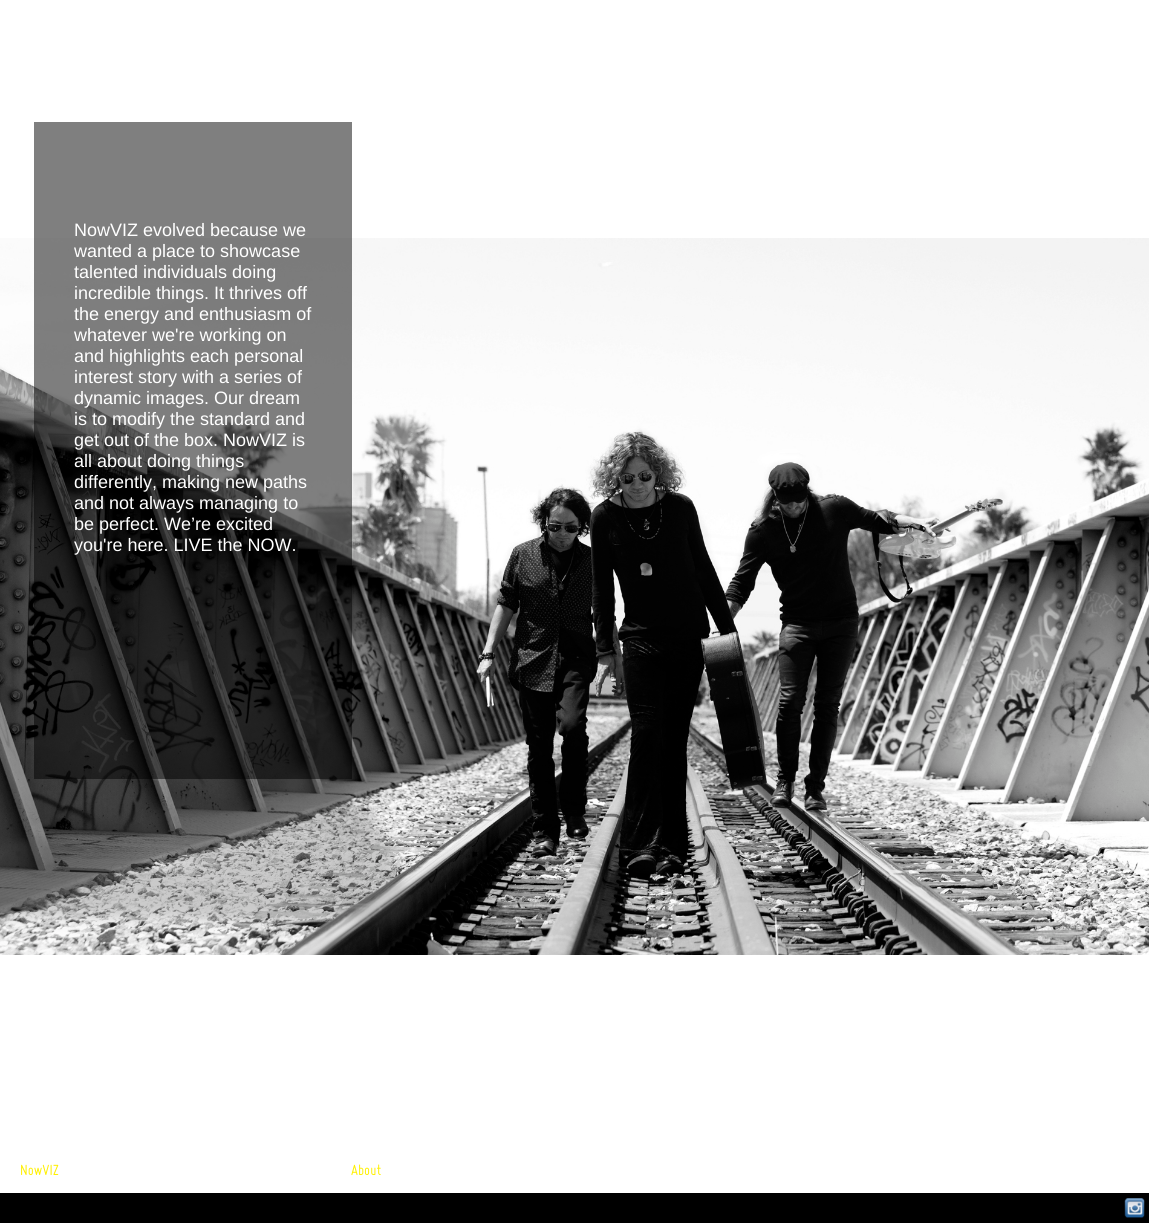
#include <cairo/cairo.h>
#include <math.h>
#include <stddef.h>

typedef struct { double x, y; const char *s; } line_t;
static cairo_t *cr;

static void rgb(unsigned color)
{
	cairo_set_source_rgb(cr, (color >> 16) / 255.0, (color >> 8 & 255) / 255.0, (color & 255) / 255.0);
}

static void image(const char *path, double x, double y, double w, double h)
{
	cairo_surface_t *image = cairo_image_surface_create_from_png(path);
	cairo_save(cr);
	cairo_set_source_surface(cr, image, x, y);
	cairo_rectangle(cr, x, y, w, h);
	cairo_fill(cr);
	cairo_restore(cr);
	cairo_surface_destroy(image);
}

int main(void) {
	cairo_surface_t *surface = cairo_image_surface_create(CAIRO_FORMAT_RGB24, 1149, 1223);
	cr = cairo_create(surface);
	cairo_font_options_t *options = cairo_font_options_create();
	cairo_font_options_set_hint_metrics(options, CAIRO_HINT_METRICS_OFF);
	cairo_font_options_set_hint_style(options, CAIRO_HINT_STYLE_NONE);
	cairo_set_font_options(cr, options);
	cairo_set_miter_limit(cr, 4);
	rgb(0xffffff);
	cairo_paint(cr);
	image("img/1.png", 0, 238, 1149, 717);
	cairo_set_source_rgba(cr, 0, 0, 0, 0.5);
	cairo_rectangle(cr, 34, 122, 318, 657);
	cairo_fill(cr);
	rgb(0x000000);
	cairo_rectangle(cr, 0, 1193, 1149, 30);
	cairo_fill(cr);
	image("img/2.png", 1124, 1198, 21, 20);
	cairo_select_font_face(cr, "Liberation Sans", CAIRO_FONT_SLANT_NORMAL, CAIRO_FONT_WEIGHT_NORMAL);
	cairo_set_font_size(cr, 18);
	rgb(0xffffff);
	{
		static const line_t items[] = {
			{74, 236, "NowVIZ evolved because we"},
			{74, 257, "wanted a place to showcase"},
			{74, 278, "talented individuals doing"},
			{74, 299, "incredible things. It thrives off"},
			{74, 320, "the energy and enthusiasm of"},
			{74, 341, "whatever we're working on"},
			{74, 362, "and highlights each personal"},
			{74, 383, "interest story with a series of"},
			{74, 404, "dynamic images. Our dream"},
			{74, 425, "is to modify the standard and"},
			{74, 446, "get out of the box. NowVIZ is"},
			{74, 467, "all about doing things"},
			{74, 488, "differently, making new paths"},
			{74, 509, "and not always managing to"},
			{74, 530, "be perfect. We’re excited"},
			{74, 551, "you're here. LIVE the NOW."},
		};
		for (size_t i = 0; i < sizeof items / sizeof *items; i++) {
			cairo_move_to(cr, items[i].x, items[i].y);
			cairo_show_text(cr, items[i].s);
		}
	}
	cairo_select_font_face(cr, "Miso", CAIRO_FONT_SLANT_ITALIC, CAIRO_FONT_WEIGHT_NORMAL);
	cairo_set_font_size(cr, 16);
	rgb(0xfff000);
	cairo_move_to(cr, 20, 1175);
	cairo_show_text(cr, "NowVIZ");
	cairo_move_to(cr, 351, 1175);
	cairo_show_text(cr, "About");
	cairo_surface_write_to_png(surface, "page.png");
	cairo_font_options_destroy(options);
	cairo_destroy(cr);
	cairo_surface_destroy(surface);
	return 0;
}
